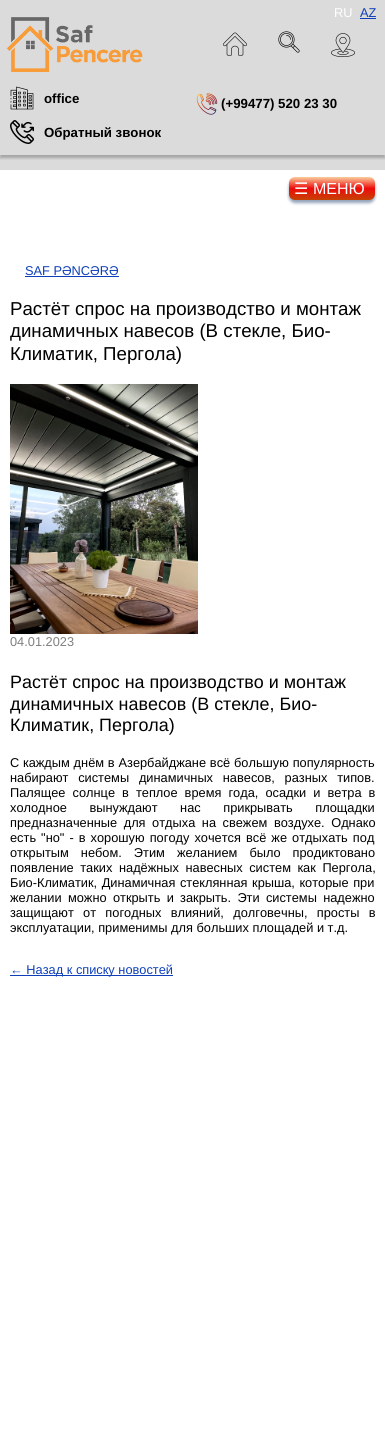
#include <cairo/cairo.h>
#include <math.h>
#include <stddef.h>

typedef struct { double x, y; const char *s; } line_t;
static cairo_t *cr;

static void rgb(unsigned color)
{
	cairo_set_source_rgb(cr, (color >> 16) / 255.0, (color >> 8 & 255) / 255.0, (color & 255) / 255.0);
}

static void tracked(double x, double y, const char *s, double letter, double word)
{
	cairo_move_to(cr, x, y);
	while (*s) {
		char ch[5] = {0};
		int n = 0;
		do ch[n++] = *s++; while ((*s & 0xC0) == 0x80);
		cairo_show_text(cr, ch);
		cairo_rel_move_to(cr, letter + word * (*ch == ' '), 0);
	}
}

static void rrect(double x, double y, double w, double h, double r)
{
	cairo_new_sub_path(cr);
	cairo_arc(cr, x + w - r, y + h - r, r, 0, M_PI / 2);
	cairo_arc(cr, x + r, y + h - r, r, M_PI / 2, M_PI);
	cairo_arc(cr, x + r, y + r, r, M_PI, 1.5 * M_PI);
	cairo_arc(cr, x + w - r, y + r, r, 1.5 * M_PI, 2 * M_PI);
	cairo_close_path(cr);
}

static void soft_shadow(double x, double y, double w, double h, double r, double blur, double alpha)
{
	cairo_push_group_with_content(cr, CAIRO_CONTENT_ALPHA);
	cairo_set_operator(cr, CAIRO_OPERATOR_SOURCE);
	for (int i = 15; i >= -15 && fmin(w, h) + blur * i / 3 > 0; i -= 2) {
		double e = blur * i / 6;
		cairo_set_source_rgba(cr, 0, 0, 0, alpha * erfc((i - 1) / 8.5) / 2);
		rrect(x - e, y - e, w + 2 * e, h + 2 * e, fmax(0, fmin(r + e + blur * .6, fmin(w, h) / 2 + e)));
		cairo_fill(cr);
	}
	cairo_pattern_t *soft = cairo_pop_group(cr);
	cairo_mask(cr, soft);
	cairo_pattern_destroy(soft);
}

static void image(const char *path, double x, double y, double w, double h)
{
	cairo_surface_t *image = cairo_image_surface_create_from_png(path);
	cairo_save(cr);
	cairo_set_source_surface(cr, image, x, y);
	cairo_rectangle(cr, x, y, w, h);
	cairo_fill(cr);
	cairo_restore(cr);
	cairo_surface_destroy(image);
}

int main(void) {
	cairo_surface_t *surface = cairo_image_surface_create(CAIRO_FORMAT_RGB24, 385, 1453);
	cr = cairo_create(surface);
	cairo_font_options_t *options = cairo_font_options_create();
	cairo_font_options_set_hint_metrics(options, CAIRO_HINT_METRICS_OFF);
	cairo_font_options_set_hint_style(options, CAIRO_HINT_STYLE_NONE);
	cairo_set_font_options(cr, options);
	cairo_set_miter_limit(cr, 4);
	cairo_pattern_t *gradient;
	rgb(0xffffff);
	cairo_paint(cr);
	rgb(0xdbdbdb);
	cairo_rectangle(cr, 0, 0, 385, 170);
	cairo_fill(cr);
	cairo_save(cr);
	cairo_rectangle(cr, 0, 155, 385, 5);
	cairo_clip(cr);
	rgb(0x000000);
	soft_shadow(0, 18, 385, 140, 0, 1.5, 0.26);
	cairo_restore(cr);
	rgb(0x0e3fb8);
	cairo_rectangle(cr, 360, 18, 16, 1);
	cairo_fill(cr);
	image("img/1.png", 6, 17, 137, 55);
	image("img/2.png", 223, 32, 24, 24);
	image("img/3.png", 278, 31, 22, 22);
	image("img/4.png", 331, 33, 24, 24);
	image("img/5.png", 10, 86, 24, 24);
	image("img/6.png", 10, 120, 24, 24);
	image("img/7.png", 196, 93, 22, 22);
	rgb(0x22426f);
	soft_shadow(289, 180, 86, 23, 6, 1.5, 0.49);
	gradient = cairo_pattern_create_linear(332, 177, 332, 200);
	cairo_pattern_add_color_stop_rgba(gradient, 0, 0.984, 0.804, 0.612, 1);
	cairo_pattern_add_color_stop_rgba(gradient, 0.5, 0.929, 0.043, 0.043, 1);
	cairo_pattern_add_color_stop_rgba(gradient, 1, 0.773, 0.263, 0.012, 1);
	cairo_set_source(cr, gradient);
	cairo_pattern_destroy(gradient);
	rrect(289, 177, 86, 23, 6);
	cairo_fill(cr);
	rgb(0x0e3fb8);
	cairo_rectangle(cr, 25, 276, 94, 1);
	cairo_fill(cr);
	image("img/8.png", 10, 384, 188, 250);
	cairo_rectangle(cr, 10, 975, 163, 1);
	cairo_fill(cr);
	cairo_select_font_face(cr, "Liberation Sans", CAIRO_FONT_SLANT_NORMAL, CAIRO_FONT_WEIGHT_NORMAL);
	cairo_set_font_size(cr, 12.8);
	rgb(0xffffff);
	cairo_move_to(cr, 334, 17);
	cairo_show_text(cr, "RU");
	rgb(0x0e3fb8);
	cairo_move_to(cr, 360, 17);
	cairo_show_text(cr, "AZ");
	cairo_select_font_face(cr, "Liberation Sans", CAIRO_FONT_SLANT_NORMAL, CAIRO_FONT_WEIGHT_BOLD);
	cairo_set_font_size(cr, 13.25);
	rgb(0x000000);
	{
		static const line_t items[] = {
			{44, 103, "office"},
			{44, 137, "Обратный звонок"},
			{221, 108, "(+99477) 520 23 30"},
		};
		for (size_t i = 0; i < sizeof items / sizeof *items; i++) {
			cairo_move_to(cr, items[i].x, items[i].y);
			cairo_show_text(cr, items[i].s);
		}
	}
	cairo_select_font_face(cr, "DejaVu Sans", CAIRO_FONT_SLANT_NORMAL, CAIRO_FONT_WEIGHT_NORMAL);
	cairo_set_font_size(cr, 16);
	rgb(0xffffff);
	cairo_move_to(cr, 294, 194);
	cairo_show_text(cr, "☰");
	cairo_select_font_face(cr, "Liberation Sans", CAIRO_FONT_SLANT_NORMAL, CAIRO_FONT_WEIGHT_NORMAL);
	cairo_move_to(cr, 313, 194);
	cairo_show_text(cr, "МЕНЮ");
	cairo_set_font_size(cr, 12.8);
	rgb(0x0e3fb8);
	cairo_move_to(cr, 25, 275);
	cairo_show_text(cr, "SAF PƏNCƏRƏ");
	cairo_set_font_size(cr, 18.7);
	rgb(0x000000);
	{
		static const line_t items[] = {
			{10, 315, "Растёт спрос на производство и монтаж"},
			{10, 337, "динамичных навесов (В стекле, Био-"},
			{10, 360, "Климатик, Пергола)"},
		};
		for (size_t i = 0; i < sizeof items / sizeof *items; i++) {
			cairo_move_to(cr, items[i].x, items[i].y);
			cairo_show_text(cr, items[i].s);
		}
	}
	cairo_set_font_size(cr, 12.8);
	rgb(0x7f7f7f);
	cairo_move_to(cr, 10, 646);
	cairo_show_text(cr, "04.01.2023");
	cairo_set_font_size(cr, 17.9);
	rgb(0x000000);
	{
		static const line_t items[] = {
			{10, 688, "Растёт спрос на производство и монтаж"},
			{10, 710, "динамичных навесов (В стекле, Био-"},
			{10, 731, "Климатик, Пергола)"},
		};
		for (size_t i = 0; i < sizeof items / sizeof *items; i++) {
			cairo_move_to(cr, items[i].x, items[i].y);
			cairo_show_text(cr, items[i].s);
		}
	}
	cairo_set_font_size(cr, 12.8);
	tracked(10, 767, "С каждым днём в Азербайджане всё большую популярность", 0, 0.25);
	tracked(10, 782, "набирают системы динамичных навесов, разных типов.", 0, 6.25);
	tracked(10, 797, "Палящее солнце в теплое время года, осадки и ветра в", 0, 3.5);
	tracked(10, 812, "холодное вынуждают нас прикрывать площадки", 0, 19);
	tracked(10, 827, "предназначенные для отдыха на свежем воздухе. Однако", 0, 3);
	tracked(10, 842, "есть \"но\" - в хорошую погоду хочется всё же отдыхать под", 0, 1.5);
	tracked(10, 857, "открытым небом. Этим желанием было продиктовано", 0, 8.5);
	tracked(10, 872, "появление таких надёжных навесных систем как Пергола,", 0, 3);
	tracked(10, 887, "Био-Климатик, Динамичная стеклянная крыша, которые при", 0, 1);
	tracked(10, 902, "желании можно открыть и закрыть. Эти системы надежно", 0, 2.75);
	tracked(10, 917, "защищают от погодных влияний, долговечны, просты в", 0, 5.75);
	cairo_move_to(cr, 10, 932);
	cairo_show_text(cr, "эксплуатации, применимы для больших площадей и т.д.");
	rgb(0x0e3fb8);
	cairo_move_to(cr, 10, 974);
	cairo_show_text(cr, "← Назад к списку новостей");
	cairo_surface_write_to_png(surface, "page.png");
	cairo_font_options_destroy(options);
	cairo_destroy(cr);
	cairo_surface_destroy(surface);
	return 0;
}
